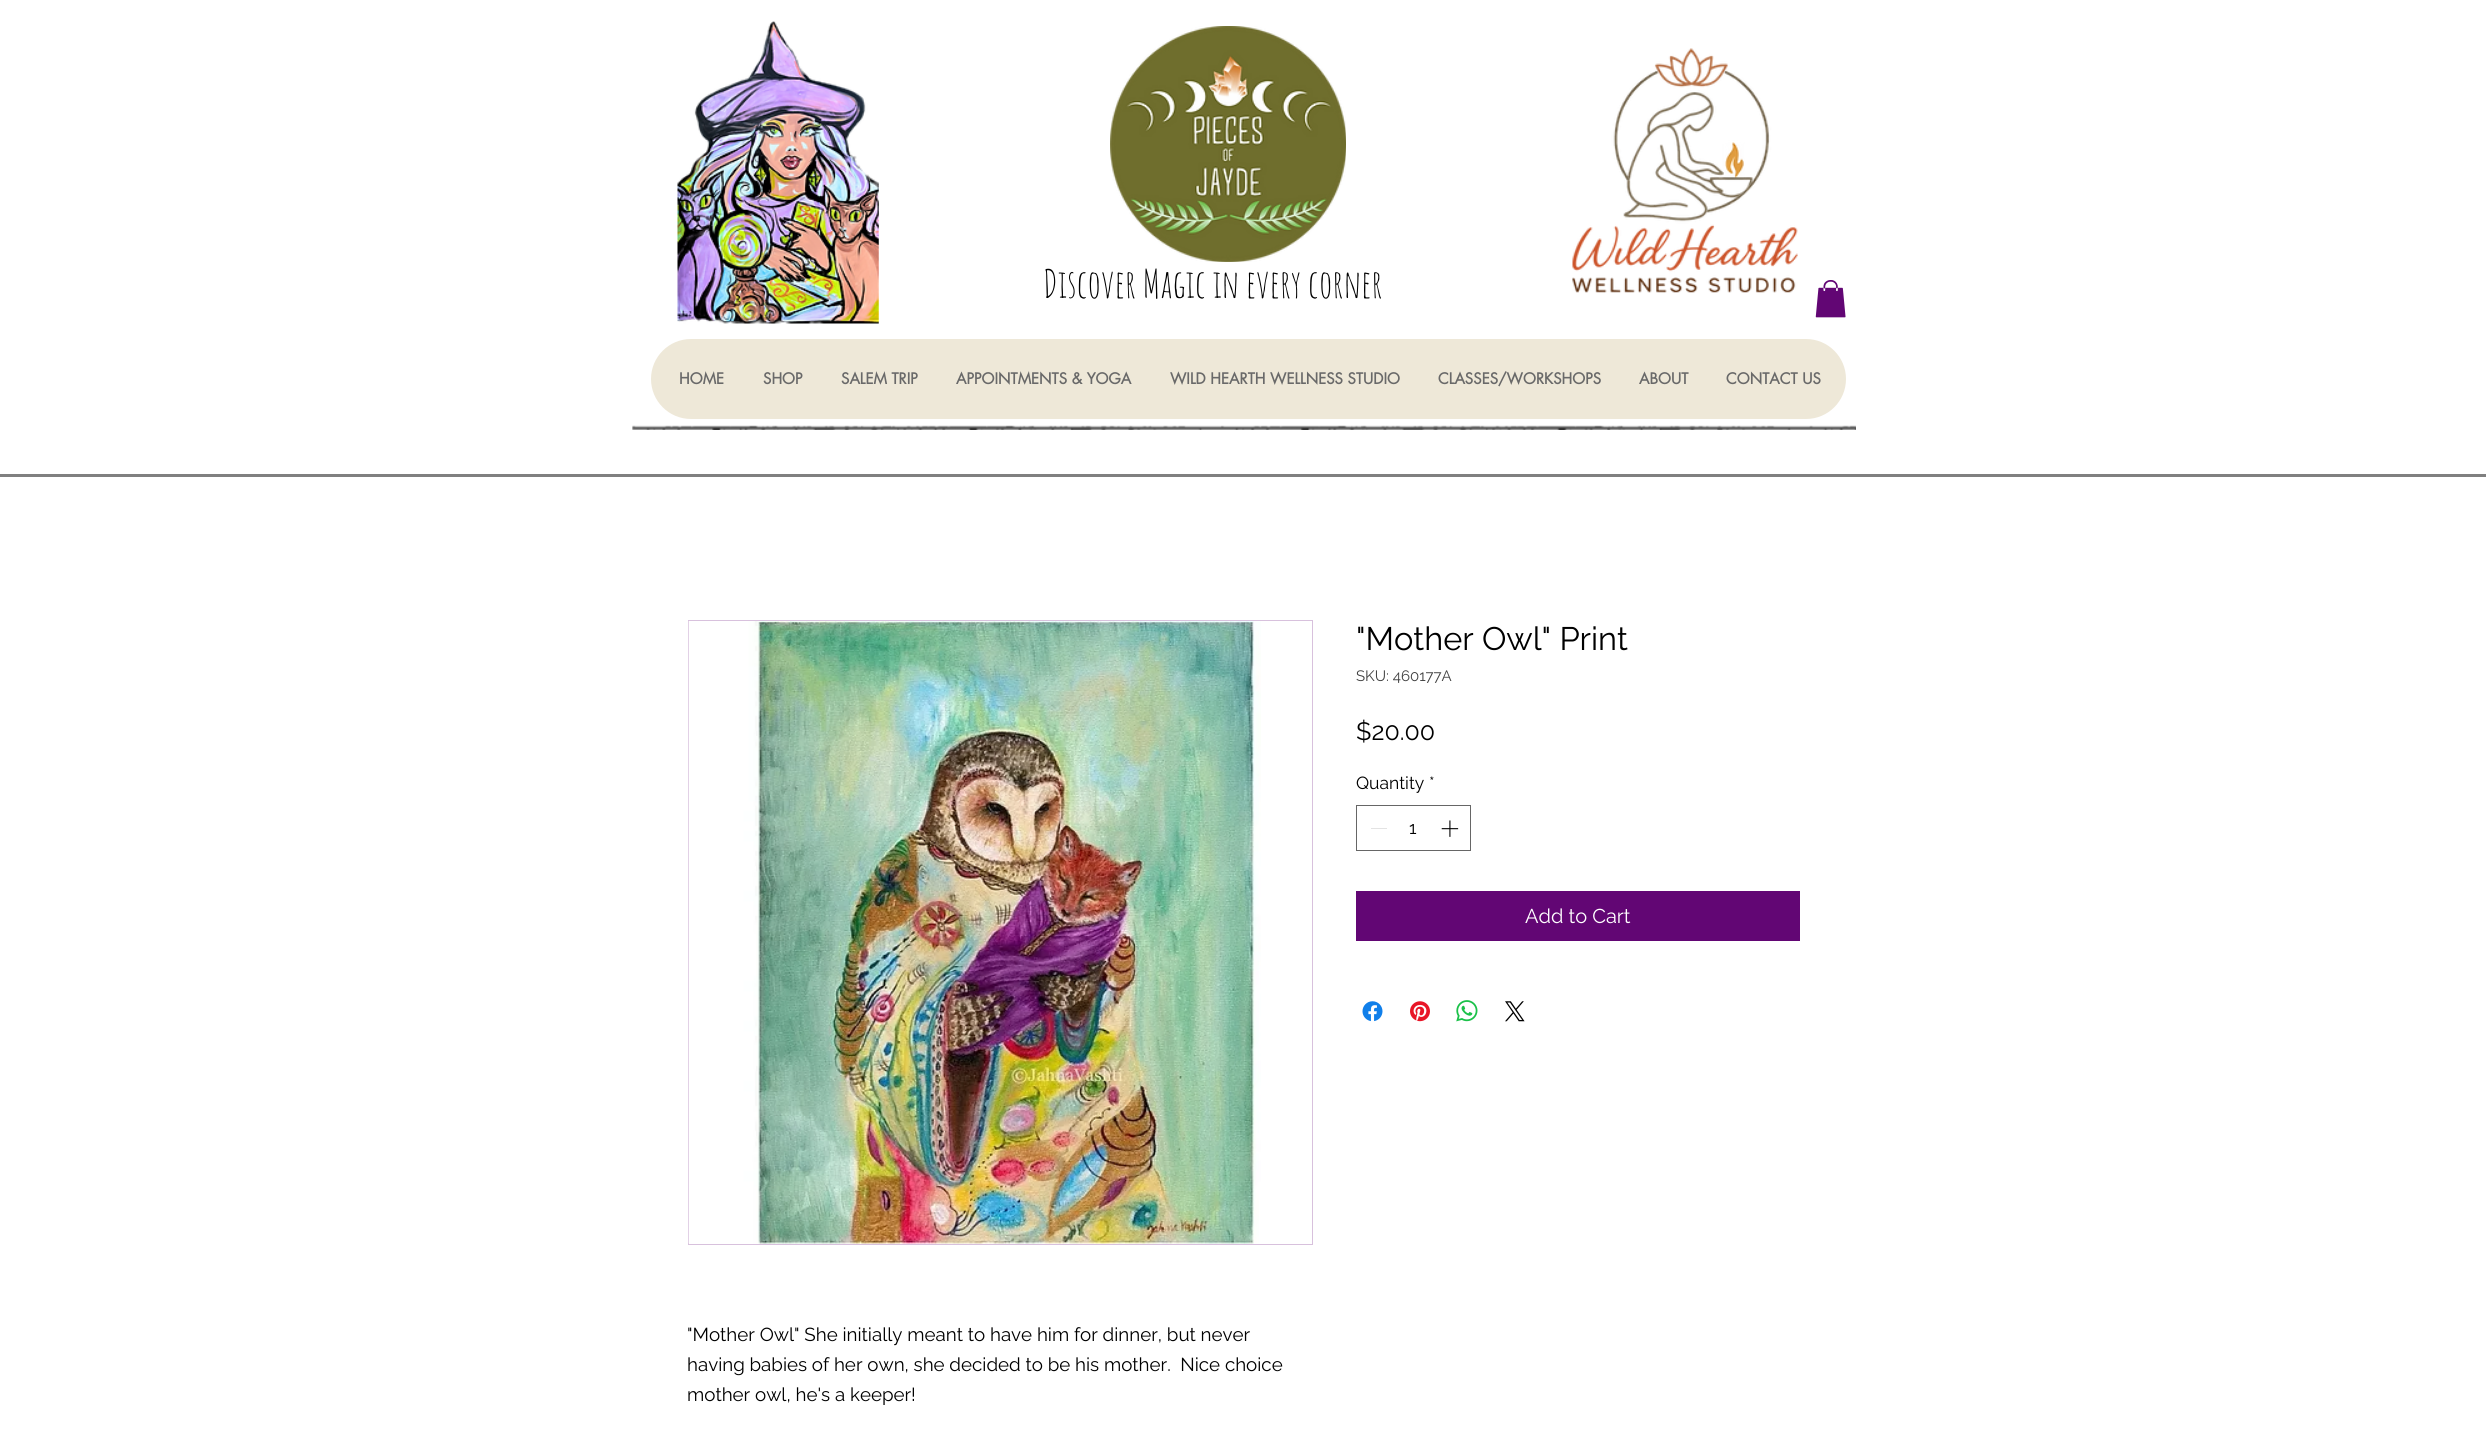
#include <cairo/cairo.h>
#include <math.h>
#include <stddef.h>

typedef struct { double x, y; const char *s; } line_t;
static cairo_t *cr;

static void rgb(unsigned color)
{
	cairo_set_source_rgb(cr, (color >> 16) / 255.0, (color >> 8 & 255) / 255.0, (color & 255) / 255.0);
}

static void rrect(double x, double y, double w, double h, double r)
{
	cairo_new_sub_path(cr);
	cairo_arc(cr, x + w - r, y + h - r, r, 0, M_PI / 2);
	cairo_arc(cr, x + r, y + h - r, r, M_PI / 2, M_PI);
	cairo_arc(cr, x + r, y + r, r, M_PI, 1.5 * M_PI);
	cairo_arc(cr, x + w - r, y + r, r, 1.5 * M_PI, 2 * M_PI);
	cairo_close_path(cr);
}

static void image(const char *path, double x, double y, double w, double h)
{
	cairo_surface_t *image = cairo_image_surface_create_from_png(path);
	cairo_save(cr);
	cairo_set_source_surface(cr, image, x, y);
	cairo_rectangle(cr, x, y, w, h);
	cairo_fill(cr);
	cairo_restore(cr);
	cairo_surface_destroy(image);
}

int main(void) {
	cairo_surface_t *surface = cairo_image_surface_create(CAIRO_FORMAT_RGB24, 2486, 1434);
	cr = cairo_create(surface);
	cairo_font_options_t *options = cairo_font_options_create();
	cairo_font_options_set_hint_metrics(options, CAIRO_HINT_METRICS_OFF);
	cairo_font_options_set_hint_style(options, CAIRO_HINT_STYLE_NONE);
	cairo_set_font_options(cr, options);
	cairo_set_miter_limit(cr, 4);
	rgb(0xffffff);
	cairo_paint(cr);
	image("img/1.png", 677, 21, 202, 303);
	image("img/2.png", 1110, 26, 236, 236);
	image("img/3.png", 1572, 48, 226, 245);
	image("img/4.png", 1815, 280, 31, 38);
	rgb(0xeee8d8);
	rrect(651, 339, 1195, 80, 40);
	cairo_fill(cr);
	image("img/5.png", 632, 425, 1224, 5);
	rgb(0x808080);
	cairo_rectangle(cr, 0, 474, 2486, 3);
	cairo_fill(cr);
	cairo_rectangle(cr, 1356.5, 805.5, 114, 45);
	rgb(0x666666);
	cairo_set_line_width(cr, 1);
	cairo_stroke(cr);
	rgb(0xe3e3e3);
	cairo_rectangle(cr, 1371, 828, 16, 1);
	cairo_fill(cr);
	image("img/6.png", 1441, 820, 18, 17);
	rgb(0x620674);
	cairo_rectangle(cr, 1356, 891, 444, 50);
	cairo_fill(cr);
	image("img/7.png", 1362, 1001, 21, 21);
	image("img/8.png", 1410, 1001, 20, 21);
	image("img/9.png", 1456, 1000, 22, 22);
	image("img/10.png", 1505, 1001, 20, 21);
	cairo_rectangle(cr, 688.5, 620.5, 624, 624);
	rgb(0xd8c1dd);
	cairo_stroke(cr);
	image("img/11.png", 688, 621, 573, 623);
	cairo_select_font_face(cr, "Amatic SC", CAIRO_FONT_SLANT_NORMAL, CAIRO_FONT_WEIGHT_NORMAL);
	cairo_set_font_size(cr, 38.75);
	rgb(0x000000);
	cairo_move_to(cr, 1043, 298);
	cairo_show_text(cr, "Discover Magic in every corner");
	cairo_select_font_face(cr, "futura", CAIRO_FONT_SLANT_NORMAL, CAIRO_FONT_WEIGHT_BOLD);
	cairo_set_font_size(cr, 15);
	rgb(0x696969);
	{
		static const line_t items[] = {
			{679, 384, "HOME"},
			{763, 384, "SHOP"},
			{841, 384, "SALEM TRIP"},
			{956, 384, "APPOINTMENTS & YOGA"},
			{1170, 384, "WILD HEARTH WELLNESS STUDIO"},
			{1438, 384, "CLASSES/WORKSHOPS"},
			{1639, 384, "ABOUT"},
			{1726, 384, "CONTACT US"},
		};
		for (size_t i = 0; i < sizeof items / sizeof *items; i++) {
			cairo_move_to(cr, items[i].x, items[i].y);
			cairo_show_text(cr, items[i].s);
		}
	}
	cairo_select_font_face(cr, "Raleway", CAIRO_FONT_SLANT_NORMAL, CAIRO_FONT_WEIGHT_NORMAL);
	cairo_set_font_size(cr, 32.5);
	rgb(0x000000);
	cairo_move_to(cr, 1356, 650);
	cairo_show_text(cr, "\"Mother Owl\" Print");
	cairo_set_font_size(cr, 15);
	rgb(0x404040);
	cairo_move_to(cr, 1356, 681);
	cairo_show_text(cr, "SKU: 460177A");
	cairo_set_font_size(cr, 25);
	rgb(0x000000);
	cairo_move_to(cr, 1356, 740);
	cairo_show_text(cr, "$20.00");
	cairo_set_font_size(cr, 17.5);
	{
		static const line_t items[] = {
			{1356, 789, "Quantity"},
			{1429, 789, "*"},
			{1409, 834, "1"},
		};
		for (size_t i = 0; i < sizeof items / sizeof *items; i++) {
			cairo_move_to(cr, items[i].x, items[i].y);
			cairo_show_text(cr, items[i].s);
		}
	}
	cairo_set_font_size(cr, 20);
	rgb(0xffffff);
	cairo_move_to(cr, 1525, 923);
	cairo_show_text(cr, "Add to Cart");
	cairo_set_font_size(cr, 18.75);
	rgb(0x000000);
	{
		static const line_t items[] = {
			{687, 1341, "\"Mother Owl\" She initially meant to have him for dinner, but never"},
			{687, 1371, "having babies of her own, she decided to be his mother.  Nice choice"},
			{687, 1401, "mother owl, he's a keeper!"},
		};
		for (size_t i = 0; i < sizeof items / sizeof *items; i++) {
			cairo_move_to(cr, items[i].x, items[i].y);
			cairo_show_text(cr, items[i].s);
		}
	}
	cairo_surface_write_to_png(surface, "page.png");
	cairo_font_options_destroy(options);
	cairo_destroy(cr);
	cairo_surface_destroy(surface);
	return 0;
}
